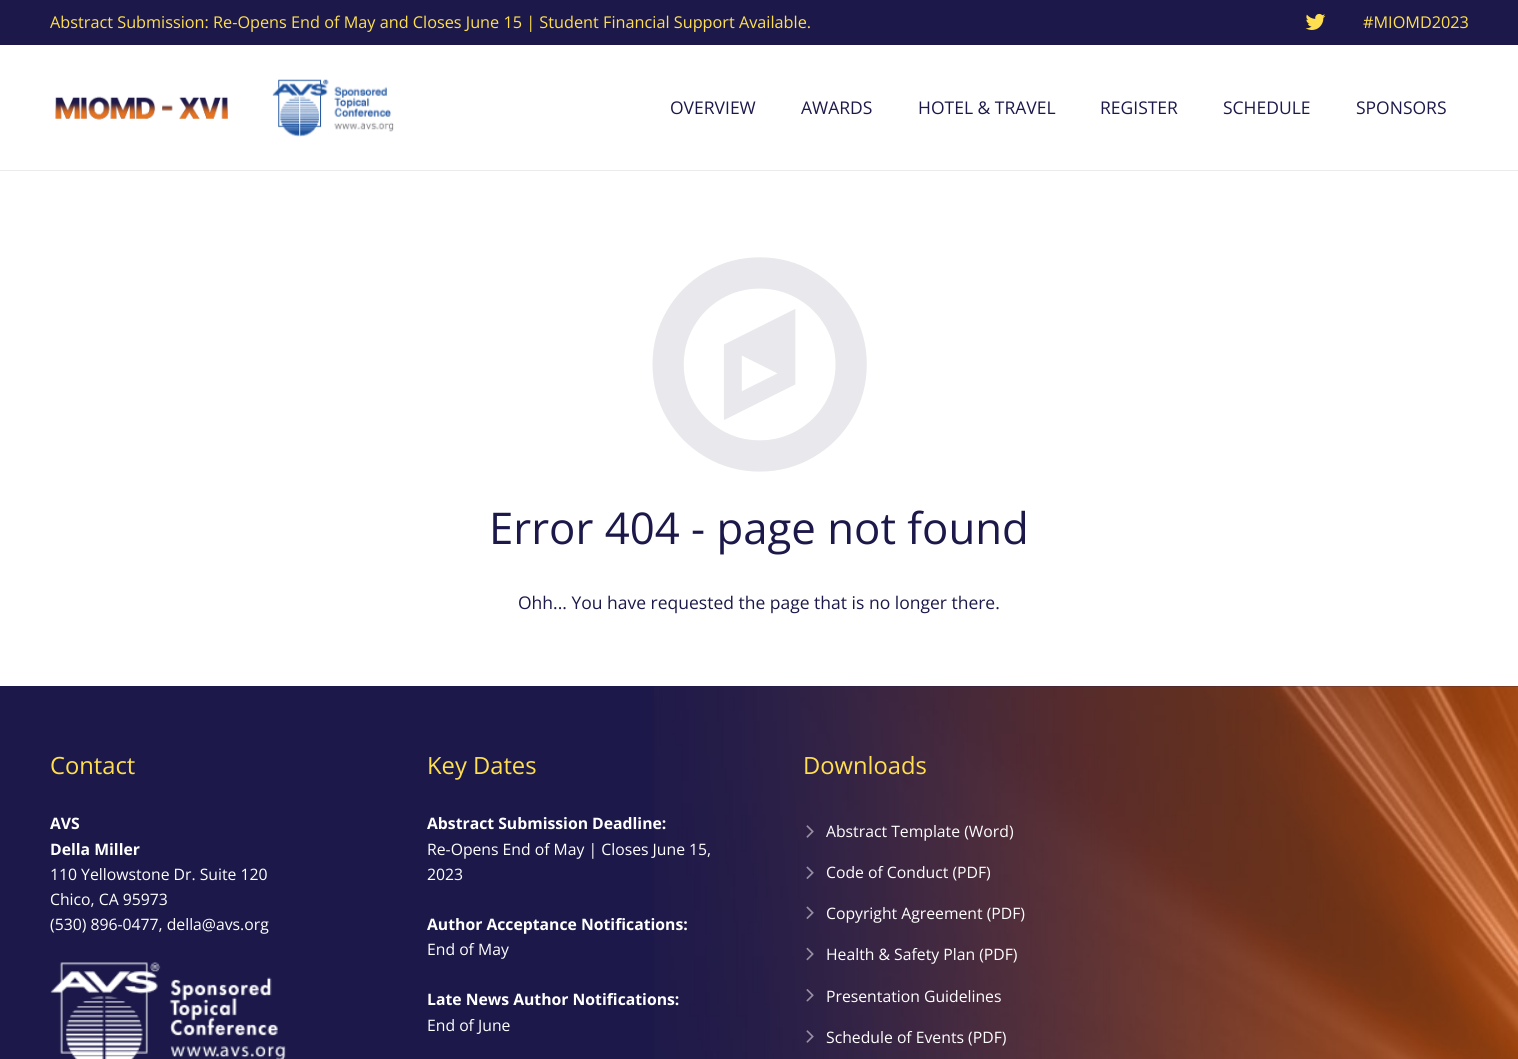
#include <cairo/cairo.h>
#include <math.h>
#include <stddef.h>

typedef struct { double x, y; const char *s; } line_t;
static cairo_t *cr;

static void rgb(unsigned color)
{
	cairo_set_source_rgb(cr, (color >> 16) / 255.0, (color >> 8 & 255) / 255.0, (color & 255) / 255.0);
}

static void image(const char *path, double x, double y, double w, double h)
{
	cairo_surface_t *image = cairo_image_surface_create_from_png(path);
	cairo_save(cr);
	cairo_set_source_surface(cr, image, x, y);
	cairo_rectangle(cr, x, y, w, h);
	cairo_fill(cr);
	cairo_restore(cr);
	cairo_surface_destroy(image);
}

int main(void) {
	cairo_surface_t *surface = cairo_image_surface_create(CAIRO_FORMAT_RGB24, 1518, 1059);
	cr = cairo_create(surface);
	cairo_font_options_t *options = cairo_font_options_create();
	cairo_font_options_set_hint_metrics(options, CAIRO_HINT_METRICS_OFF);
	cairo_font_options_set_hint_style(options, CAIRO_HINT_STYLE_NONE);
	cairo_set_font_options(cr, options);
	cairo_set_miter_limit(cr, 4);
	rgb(0xffffff);
	cairo_paint(cr);
	rgb(0x1c194a);
	cairo_rectangle(cr, 0, 0, 1518, 45);
	cairo_fill(cr);
	image("img/1.png", 1305, 13, 21, 17);
	rgb(0xebebeb);
	cairo_new_path(cr);
	cairo_move_to(cr, 0, 170);
	cairo_line_to(cr, 0, 171);
	cairo_line_to(cr, 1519, 171);
	cairo_line_to(cr, 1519, 46);
	cairo_line_to(cr, 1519, 170);
	cairo_close_path(cr);
	cairo_fill(cr);
	image("img/2.png", 55, 96, 173, 24);
	image("img/3.png", 272, 79, 122, 58);
	image("img/4.png", 652, 257, 215, 215);
	rgb(0x1c194a);
	cairo_rectangle(cr, 0, 686, 1518, 373);
	cairo_fill(cr);
	image("img/5.png", 654, 686, 864, 373);
	image("img/6.png", 50, 962, 236, 97);
	image("img/7.png", 806, 825, 8, 13);
	image("img/8.png", 806, 866, 8, 13);
	image("img/9.png", 806, 906, 8, 13);
	image("img/10.png", 806, 947, 8, 14);
	image("img/11.png", 806, 989, 8, 13);
	image("img/12.png", 806, 1030, 8, 13);
	cairo_select_font_face(cr, "Open Sans", CAIRO_FONT_SLANT_NORMAL, CAIRO_FONT_WEIGHT_NORMAL);
	cairo_set_font_size(cr, 16.25);
	rgb(0xffdf4f);
	cairo_move_to(cr, 50, 28);
	cairo_show_text(cr, "Abstract Submission: Re-Opens End of May and Closes June 15 | Student Financial Support Available.");
	cairo_move_to(cr, 1363, 28);
	cairo_show_text(cr, "#MIOMD2023");
	cairo_set_font_size(cr, 17.5);
	rgb(0x1c194a);
	{
		static const line_t items[] = {
			{670, 114, "OVERVIEW"},
			{801, 114, "AWARDS"},
			{918, 114, "HOTEL & TRAVEL"},
			{1100, 114, "REGISTER"},
			{1223, 114, "SCHEDULE"},
			{1356, 114, "SPONSORS"},
		};
		for (size_t i = 0; i < sizeof items / sizeof *items; i++) {
			cairo_move_to(cr, items[i].x, items[i].y);
			cairo_show_text(cr, items[i].s);
		}
	}
	cairo_set_font_size(cr, 43.75);
	cairo_move_to(cr, 489, 544);
	cairo_show_text(cr, "Error 404 - page not found");
	cairo_set_font_size(cr, 17.5);
	cairo_move_to(cr, 518, 609);
	cairo_show_text(cr, "Ohh... You have requested the page that is no longer there.");
	cairo_set_font_size(cr, 23.75);
	rgb(0xffdf4f);
	cairo_move_to(cr, 50, 774);
	cairo_show_text(cr, "Contact");
	cairo_select_font_face(cr, "Open Sans", CAIRO_FONT_SLANT_NORMAL, CAIRO_FONT_WEIGHT_BOLD);
	cairo_set_font_size(cr, 15.75);
	rgb(0xffffff);
	cairo_move_to(cr, 50, 829);
	cairo_show_text(cr, "AVS");
	cairo_move_to(cr, 50, 855);
	cairo_show_text(cr, "Della Miller");
	cairo_select_font_face(cr, "Open Sans", CAIRO_FONT_SLANT_NORMAL, CAIRO_FONT_WEIGHT_NORMAL);
	{
		static const line_t items[] = {
			{50, 880, "110 Yellowstone Dr. Suite 120"},
			{50, 905, "Chico, CA 95973"},
			{50, 930, "(530) 896-0477, della@avs.org"},
		};
		for (size_t i = 0; i < sizeof items / sizeof *items; i++) {
			cairo_move_to(cr, items[i].x, items[i].y);
			cairo_show_text(cr, items[i].s);
		}
	}
	cairo_set_font_size(cr, 23.75);
	rgb(0xffdf4f);
	cairo_move_to(cr, 427, 774);
	cairo_show_text(cr, "Key Dates");
	cairo_select_font_face(cr, "Open Sans", CAIRO_FONT_SLANT_NORMAL, CAIRO_FONT_WEIGHT_BOLD);
	cairo_set_font_size(cr, 15.75);
	rgb(0xffffff);
	cairo_move_to(cr, 427, 829);
	cairo_show_text(cr, "Abstract Submission Deadline:");
	cairo_select_font_face(cr, "Open Sans", CAIRO_FONT_SLANT_NORMAL, CAIRO_FONT_WEIGHT_NORMAL);
	cairo_move_to(cr, 427, 855);
	cairo_show_text(cr, "Re-Opens End of May | Closes June 15,");
	cairo_move_to(cr, 427, 880);
	cairo_show_text(cr, "2023");
	cairo_select_font_face(cr, "Open Sans", CAIRO_FONT_SLANT_NORMAL, CAIRO_FONT_WEIGHT_BOLD);
	cairo_move_to(cr, 427, 930);
	cairo_show_text(cr, "Author Acceptance Notifications:");
	cairo_select_font_face(cr, "Open Sans", CAIRO_FONT_SLANT_NORMAL, CAIRO_FONT_WEIGHT_NORMAL);
	cairo_move_to(cr, 427, 955);
	cairo_show_text(cr, "End of May");
	cairo_select_font_face(cr, "Open Sans", CAIRO_FONT_SLANT_NORMAL, CAIRO_FONT_WEIGHT_BOLD);
	cairo_move_to(cr, 427, 1005);
	cairo_show_text(cr, "Late News Author Notifications:");
	cairo_select_font_face(cr, "Open Sans", CAIRO_FONT_SLANT_NORMAL, CAIRO_FONT_WEIGHT_NORMAL);
	cairo_move_to(cr, 427, 1031);
	cairo_show_text(cr, "End of June");
	cairo_set_font_size(cr, 23.75);
	rgb(0xffdf4f);
	cairo_move_to(cr, 803, 774);
	cairo_show_text(cr, "Downloads");
	cairo_set_font_size(cr, 15.75);
	rgb(0xffffff);
	{
		static const line_t items[] = {
			{826, 837, "Abstract Template (Word)"},
			{826, 878, "Code of Conduct (PDF)"},
			{826, 919, "Copyright Agreement (PDF)"},
			{826, 960, "Health & Safety Plan (PDF)"},
			{826, 1002, "Presentation Guidelines"},
			{826, 1043, "Schedule of Events (PDF)"},
		};
		for (size_t i = 0; i < sizeof items / sizeof *items; i++) {
			cairo_move_to(cr, items[i].x, items[i].y);
			cairo_show_text(cr, items[i].s);
		}
	}
	cairo_surface_write_to_png(surface, "page.png");
	cairo_font_options_destroy(options);
	cairo_destroy(cr);
	cairo_surface_destroy(surface);
	return 0;
}
